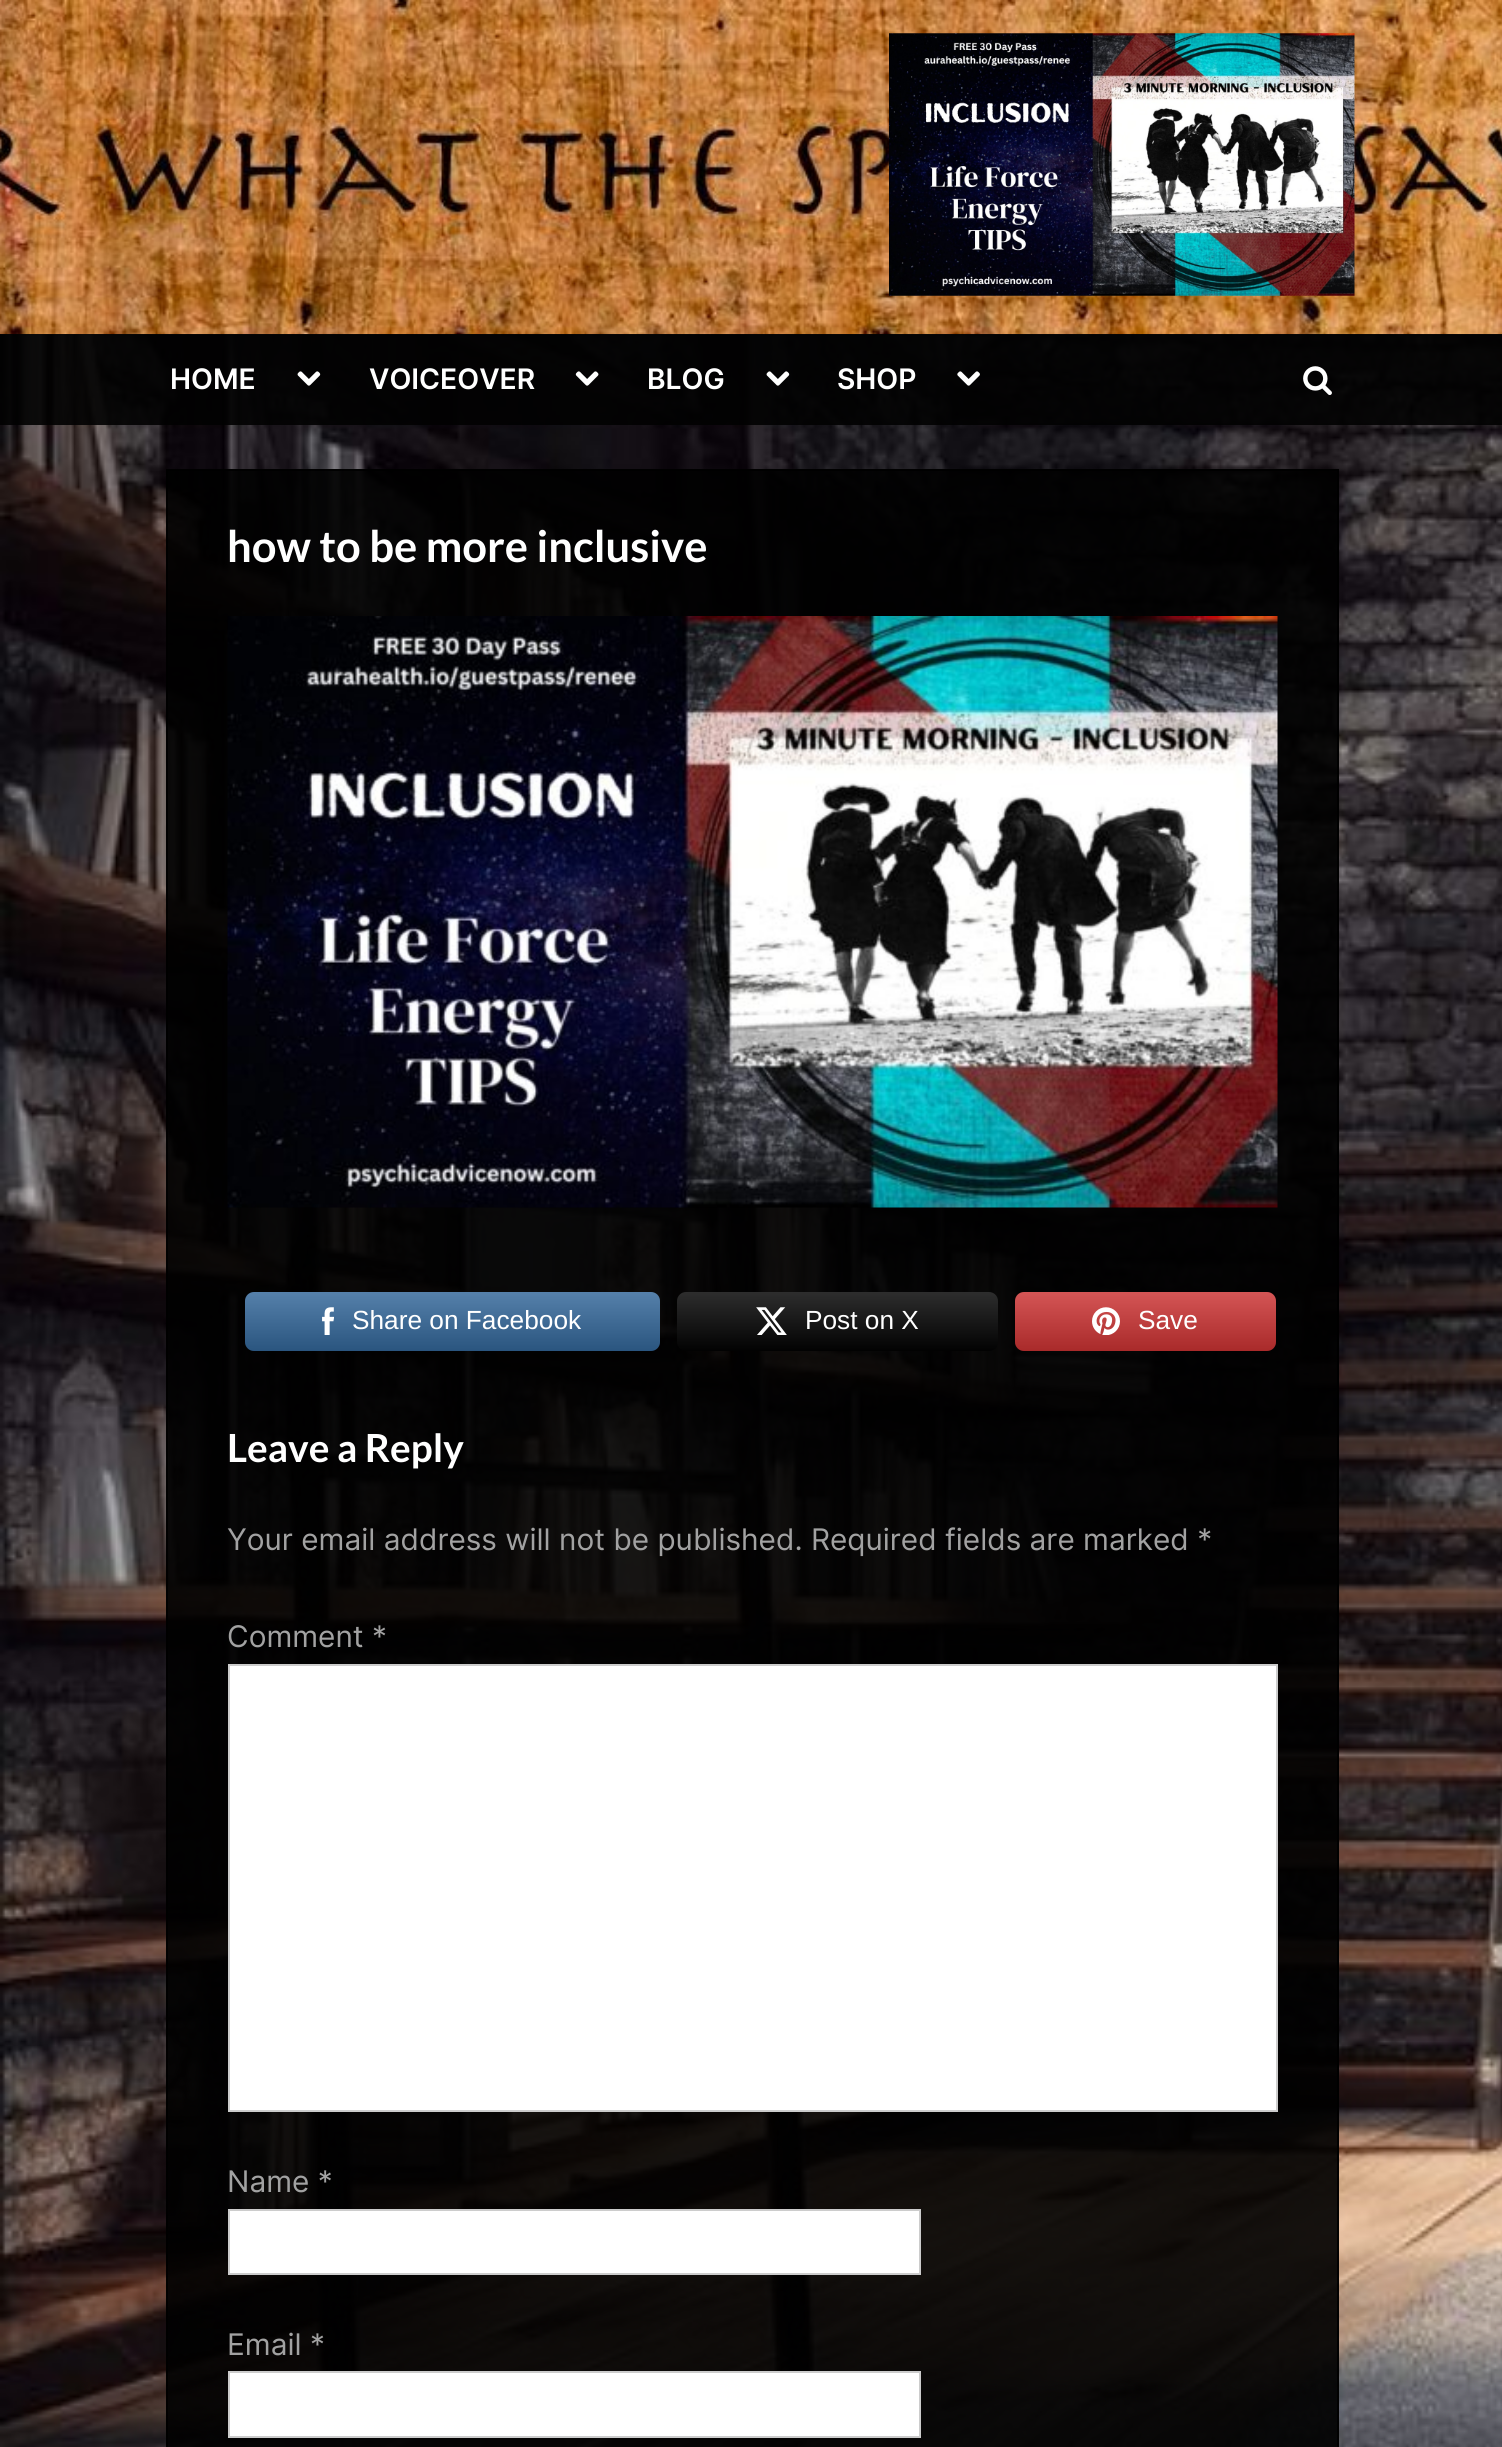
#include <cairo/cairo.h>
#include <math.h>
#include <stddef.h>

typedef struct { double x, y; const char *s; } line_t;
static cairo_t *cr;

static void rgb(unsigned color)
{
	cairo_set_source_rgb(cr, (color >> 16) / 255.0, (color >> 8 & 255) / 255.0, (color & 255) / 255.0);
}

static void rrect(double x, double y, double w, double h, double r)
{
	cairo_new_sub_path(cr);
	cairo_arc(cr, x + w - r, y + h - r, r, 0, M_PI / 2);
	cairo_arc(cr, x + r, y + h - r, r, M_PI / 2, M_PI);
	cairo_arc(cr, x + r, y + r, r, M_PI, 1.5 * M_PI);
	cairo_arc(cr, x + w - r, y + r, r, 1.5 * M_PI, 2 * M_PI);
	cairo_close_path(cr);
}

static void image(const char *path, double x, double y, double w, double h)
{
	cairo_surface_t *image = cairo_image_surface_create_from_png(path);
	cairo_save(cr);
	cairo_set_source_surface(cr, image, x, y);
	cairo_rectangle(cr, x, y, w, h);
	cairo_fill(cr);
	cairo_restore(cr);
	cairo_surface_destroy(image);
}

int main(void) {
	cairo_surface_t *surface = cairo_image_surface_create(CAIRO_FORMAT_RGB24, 1502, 2447);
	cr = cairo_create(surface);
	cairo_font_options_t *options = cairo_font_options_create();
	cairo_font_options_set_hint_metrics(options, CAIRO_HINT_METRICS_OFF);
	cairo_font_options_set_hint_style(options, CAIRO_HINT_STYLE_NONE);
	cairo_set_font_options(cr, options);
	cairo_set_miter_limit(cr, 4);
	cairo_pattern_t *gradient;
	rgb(0xffffff);
	cairo_paint(cr);
	image("img/1.png", 0, 334, 1502, 2113);
	image("img/2.png", 0, 0, 1502, 335);
	image("img/3.png", 889, 33, 466, 263);
	cairo_set_source_rgba(cr, 0.008, 0.008, 0.008, 0.9);
	cairo_rectangle(cr, 0, 334, 1502, 91);
	cairo_fill(cr);
	image("img/4.png", 297, 371, 24, 15);
	image("img/5.png", 575, 371, 24, 15);
	image("img/6.png", 766, 371, 24, 15);
	image("img/7.png", 957, 371, 23, 15);
	image("img/8.png", 1303, 366, 29, 29);
	cairo_set_source_rgba(cr, 0, 0, 0, 0.91);
	cairo_rectangle(cr, 166, 469, 1173, 1978);
	cairo_fill(cr);
	cairo_rectangle(cr, 167, 470, 1171, 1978);
	cairo_stroke(cr);
	image("img/9.png", 227, 616, 1051, 592);
	rgb(0x336699);
	rrect(245, 1292, 415, 59, 9);
	cairo_fill(cr);
	gradient = cairo_pattern_create_linear(452, 1351, 452, 1292);
	cairo_pattern_add_color_stop_rgba(gradient, 0, 0, 0, 0, 0.17);
	cairo_pattern_add_color_stop_rgba(gradient, 1, 1, 1, 1, 0.17);
	cairo_set_source(cr, gradient);
	cairo_pattern_destroy(gradient);
	rrect(245, 1292, 415, 59, 9);
	cairo_fill(cr);
	image("img/10.png", 322, 1307, 12, 28);
	rgb(0x020202);
	rrect(677, 1292, 321, 59, 9);
	cairo_fill(cr);
	gradient = cairo_pattern_create_linear(837, 1351, 837, 1292);
	cairo_pattern_add_color_stop_rgba(gradient, 0, 0, 0, 0, 0.17);
	cairo_pattern_add_color_stop_rgba(gradient, 1, 1, 1, 1, 0.17);
	cairo_set_source(cr, gradient);
	cairo_pattern_destroy(gradient);
	rrect(677, 1292, 321, 59, 9);
	cairo_fill(cr);
	image("img/11.png", 756, 1307, 31, 28);
	rgb(0xcb3233);
	rrect(1015, 1292, 261, 59, 9);
	cairo_fill(cr);
	gradient = cairo_pattern_create_linear(1145, 1351, 1145, 1292);
	cairo_pattern_add_color_stop_rgba(gradient, 0, 0, 0, 0, 0.17);
	cairo_pattern_add_color_stop_rgba(gradient, 1, 1, 1, 1, 0.17);
	cairo_set_source(cr, gradient);
	cairo_pattern_destroy(gradient);
	rrect(1015, 1292, 261, 59, 9);
	cairo_fill(cr);
	image("img/12.png", 1092, 1307, 28, 28);
	rgb(0xffffff);
	cairo_rectangle(cr, 229, 1665, 1048, 446);
	cairo_fill_preserve(cr);
	rgb(0xcccccc);
	cairo_stroke(cr);
	rgb(0xffffff);
	cairo_rectangle(cr, 229, 2210, 691, 64);
	cairo_fill_preserve(cr);
	rgb(0xcccccc);
	cairo_stroke(cr);
	rgb(0xffffff);
	cairo_rectangle(cr, 229, 2372, 691, 65);
	cairo_fill_preserve(cr);
	rgb(0xcccccc);
	cairo_stroke(cr);
	cairo_select_font_face(cr, "Inter SemiBold", CAIRO_FONT_SLANT_NORMAL, CAIRO_FONT_WEIGHT_NORMAL);
	cairo_set_font_size(cr, 28.25);
	rgb(0xffffff);
	{
		static const line_t items[] = {
			{170, 389, "HOME"},
			{369, 389, "VOICEOVER"},
			{647, 389, "BLOG"},
			{837, 389, "SHOP"},
		};
		for (size_t i = 0; i < sizeof items / sizeof *items; i++) {
			cairo_move_to(cr, items[i].x, items[i].y);
			cairo_show_text(cr, items[i].s);
		}
	}
	cairo_select_font_face(cr, "Lato", CAIRO_FONT_SLANT_NORMAL, CAIRO_FONT_WEIGHT_BOLD);
	cairo_set_font_size(cr, 43.5);
	cairo_move_to(cr, 227, 562);
	cairo_show_text(cr, "how to be more inclusive");
	cairo_select_font_face(cr, "Liberation Sans", CAIRO_FONT_SLANT_NORMAL, CAIRO_FONT_WEIGHT_NORMAL);
	cairo_set_font_size(cr, 26.25);
	{
		static const line_t items[] = {
			{352, 1329, "Share on Facebook"},
			{805, 1329, "Post on X"},
			{1138, 1329, "Save"},
		};
		for (size_t i = 0; i < sizeof items / sizeof *items; i++) {
			cairo_move_to(cr, items[i].x, items[i].y);
			cairo_show_text(cr, items[i].s);
		}
	}
	cairo_select_font_face(cr, "Lato", CAIRO_FONT_SLANT_NORMAL, CAIRO_FONT_WEIGHT_BOLD);
	cairo_set_font_size(cr, 38.75);
	cairo_move_to(cr, 227, 1462);
	cairo_show_text(cr, "Leave a Reply");
	cairo_select_font_face(cr, "Inter", CAIRO_FONT_SLANT_NORMAL, CAIRO_FONT_WEIGHT_NORMAL);
	cairo_set_font_size(cr, 29.75);
	rgb(0xa2a2a2);
	{
		static const line_t items[] = {
			{227, 1550, "Your email address will not be published. Required fields are marked *"},
			{227, 1647, "Comment *"},
			{227, 2192, "Name *"},
			{227, 2355, "Email *"},
		};
		for (size_t i = 0; i < sizeof items / sizeof *items; i++) {
			cairo_move_to(cr, items[i].x, items[i].y);
			cairo_show_text(cr, items[i].s);
		}
	}
	cairo_surface_write_to_png(surface, "page.png");
	cairo_font_options_destroy(options);
	cairo_destroy(cr);
	cairo_surface_destroy(surface);
	return 0;
}
